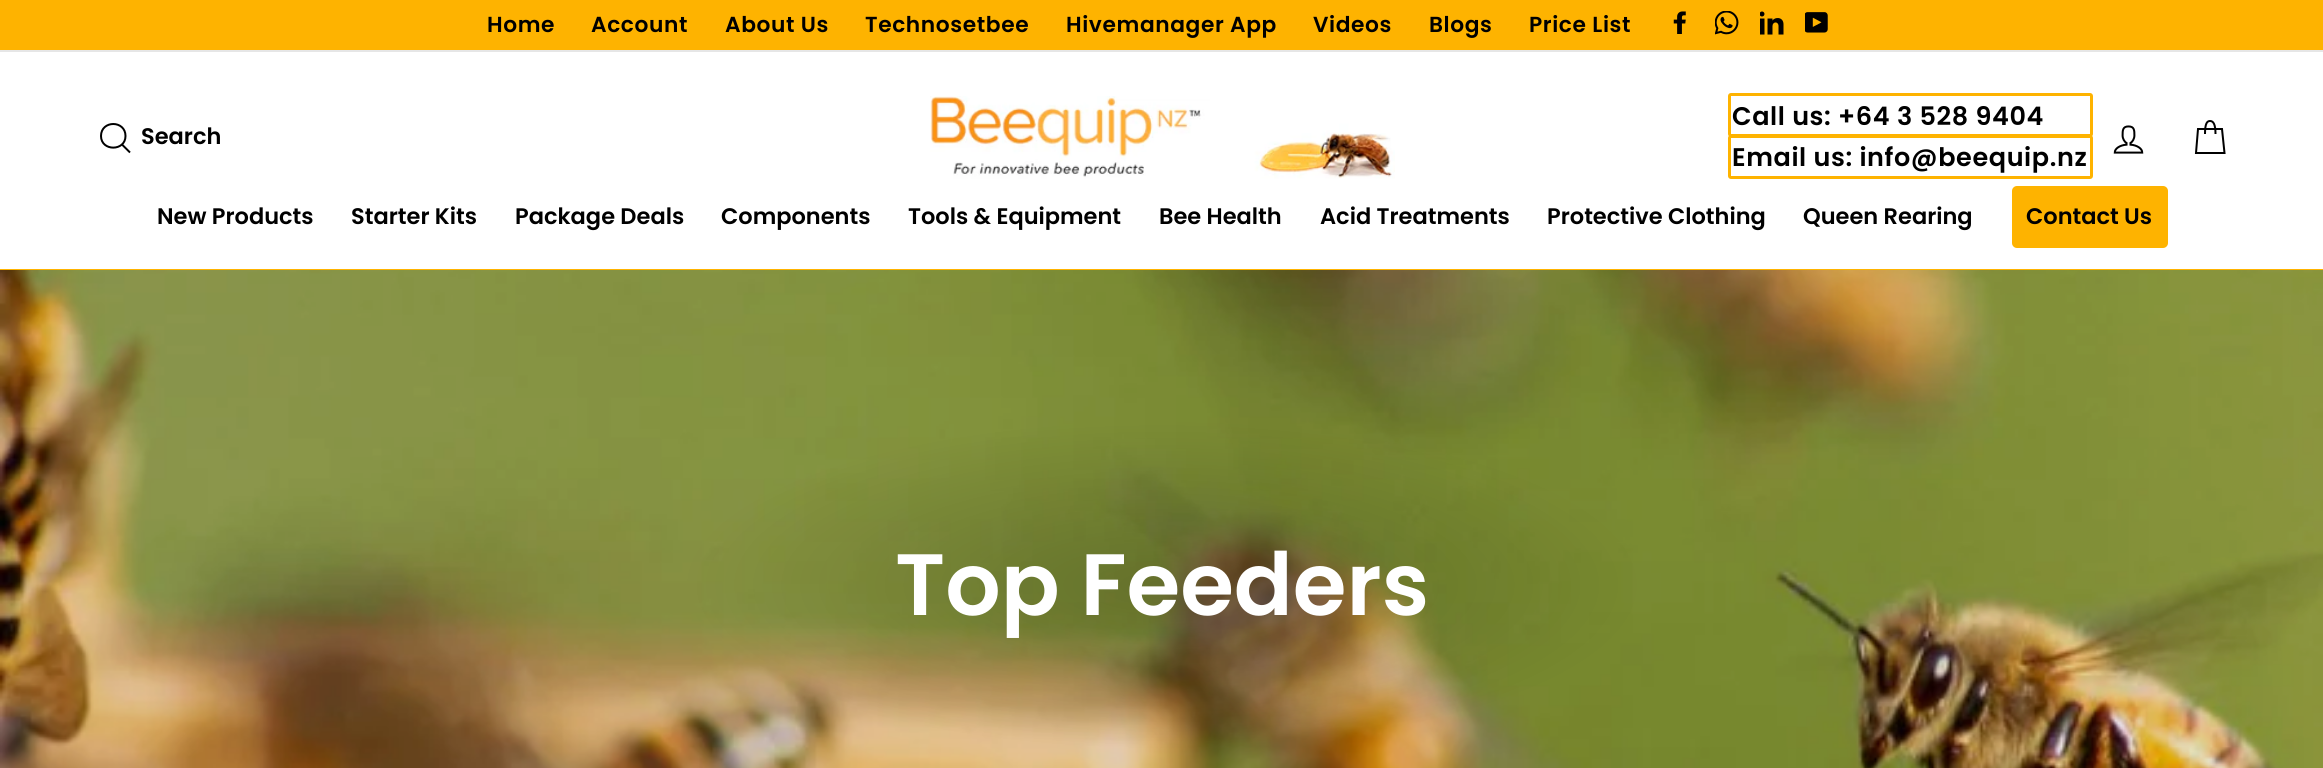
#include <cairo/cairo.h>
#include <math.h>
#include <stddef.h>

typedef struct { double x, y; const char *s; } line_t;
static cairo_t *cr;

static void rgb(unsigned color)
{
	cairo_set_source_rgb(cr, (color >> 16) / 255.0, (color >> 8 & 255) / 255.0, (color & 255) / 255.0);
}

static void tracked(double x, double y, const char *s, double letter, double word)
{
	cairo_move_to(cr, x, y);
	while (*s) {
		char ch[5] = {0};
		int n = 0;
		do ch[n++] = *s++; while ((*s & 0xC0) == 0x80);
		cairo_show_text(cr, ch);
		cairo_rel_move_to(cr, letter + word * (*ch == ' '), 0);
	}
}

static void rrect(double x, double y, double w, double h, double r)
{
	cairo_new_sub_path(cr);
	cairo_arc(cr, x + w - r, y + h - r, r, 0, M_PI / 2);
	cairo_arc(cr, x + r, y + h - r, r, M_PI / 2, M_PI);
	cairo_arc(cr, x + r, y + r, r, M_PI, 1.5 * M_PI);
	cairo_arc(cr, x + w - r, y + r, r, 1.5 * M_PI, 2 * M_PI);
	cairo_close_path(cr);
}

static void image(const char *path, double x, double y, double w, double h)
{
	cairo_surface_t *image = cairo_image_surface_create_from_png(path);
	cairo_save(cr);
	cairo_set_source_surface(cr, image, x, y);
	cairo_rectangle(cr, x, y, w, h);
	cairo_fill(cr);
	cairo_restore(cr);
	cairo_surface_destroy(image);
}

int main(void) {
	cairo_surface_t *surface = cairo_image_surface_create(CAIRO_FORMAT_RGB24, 2323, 768);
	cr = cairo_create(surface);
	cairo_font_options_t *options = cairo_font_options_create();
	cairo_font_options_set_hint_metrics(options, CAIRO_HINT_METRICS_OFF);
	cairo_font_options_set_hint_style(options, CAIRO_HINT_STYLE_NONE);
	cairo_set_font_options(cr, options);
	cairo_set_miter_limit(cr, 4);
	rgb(0xffffff);
	cairo_paint(cr);
	rgb(0xfeb300);
	cairo_rectangle(cr, 0, 0, 2323, 50);
	cairo_fill(cr);
	image("img/1.png", 1673, 11, 13, 23);
	image("img/2.png", 1715, 11, 24, 24);
	image("img/3.png", 1760, 11, 24, 24);
	image("img/4.png", 1805, 12, 23, 21);
	rgb(0xe6e6e6);
	cairo_rectangle(cr, 0, 50, 2323, 2);
	cairo_fill(cr);
	rgb(0xfeb300);
	cairo_rectangle(cr, 0, 269, 2323, 1);
	cairo_fill(cr);
	cairo_new_path(cr);
	cairo_move_to(cr, 125.5, 136);
	cairo_curve_to(cr, 125.5, 151.5, 101, 151.5, 101, 136);
	cairo_curve_to(cr, 101, 120, 125.5, 120, 125.5, 136);
	cairo_close_path(cr);
	cairo_move_to(cr, 130, 152.5);
	cairo_line_to(cr, 122, 144.5);
	rgb(0x000000);
	cairo_stroke(cr);
	image("img/5.png", 930, 96, 465, 83);
	rrect(1729.5, 94.5, 362, 41, 1.5);
	rgb(0xfeb300);
	cairo_set_line_width(cr, 3);
	cairo_stroke(cr);
	rrect(1729.5, 136.5, 362, 41, 1.5);
	cairo_stroke(cr);
	image("img/6.png", 2113, 125, 31, 29);
	cairo_new_path(cr);
	cairo_move_to(cr, 2205, 134);
	cairo_curve_to(cr, 2205, 123.5, 2207, 121, 2210, 121);
	cairo_curve_to(cr, 2213, 121, 2215.5, 123.5, 2215.5, 134);
	cairo_move_to(cr, 2198, 129);
	cairo_line_to(cr, 2222, 129);
	cairo_line_to(cr, 2224.5, 153);
	cairo_line_to(cr, 2196, 153);
	cairo_close_path(cr);
	rgb(0x000000);
	cairo_set_line_width(cr, 2);
	cairo_stroke(cr);
	rgb(0xfeb300);
	rrect(2012, 186, 156, 62, 5);
	cairo_fill(cr);
	image("img/7.png", 0, 270, 2323, 498);
	cairo_select_font_face(cr, "Poppins SemiBold", CAIRO_FONT_SLANT_NORMAL, CAIRO_FONT_WEIGHT_NORMAL);
	cairo_set_font_size(cr, 21.75);
	rgb(0x000000);
	{
		static const line_t items[] = {
			{487, 32, "Home"},
			{591, 32, "Account"},
			{725, 32, "About Us"},
			{865, 32, "Technosetbee"},
			{1066, 32, "Hivemanager App"},
			{1313, 32, "Videos"},
			{1429, 32, "Blogs"},
			{1529, 32, "Price List"},
		};
		for (size_t i = 0; i < sizeof items / sizeof *items; i++) {
			tracked(items[i].x, items[i].y, items[i].s, 0.6, 0);
		}
	}
	cairo_set_font_size(cr, 22.5);
	cairo_move_to(cr, 141, 144);
	cairo_show_text(cr, "Search");
	cairo_set_font_size(cr, 25.5);
	tracked(1732, 125, "Call us: +64 3 528 9404", 0.6, 0);
	tracked(1732, 166, "Email us: info@beequip.nz", 0.6, 0);
	cairo_set_font_size(cr, 22.5);
	{
		static const line_t items[] = {
			{157, 224, "New Products"},
			{351, 224, "Starter Kits"},
			{515, 224, "Package Deals"},
			{721, 224, "Components"},
			{908, 224, "Tools & Equipment"},
			{1159, 224, "Bee Health"},
			{1320, 224, "Acid Treatments"},
			{1547, 224, "Protective Clothing"},
			{1803, 224, "Queen Rearing"},
			{2026, 224, "Contact Us"},
		};
		for (size_t i = 0; i < sizeof items / sizeof *items; i++) {
			cairo_move_to(cr, items[i].x, items[i].y);
			cairo_show_text(cr, items[i].s);
		}
	}
	cairo_set_font_size(cr, 87);
	rgb(0xffffff);
	cairo_move_to(cr, 895, 615);
	cairo_show_text(cr, "Top Feeders");
	cairo_surface_write_to_png(surface, "page.png");
	cairo_font_options_destroy(options);
	cairo_destroy(cr);
	cairo_surface_destroy(surface);
	return 0;
}
